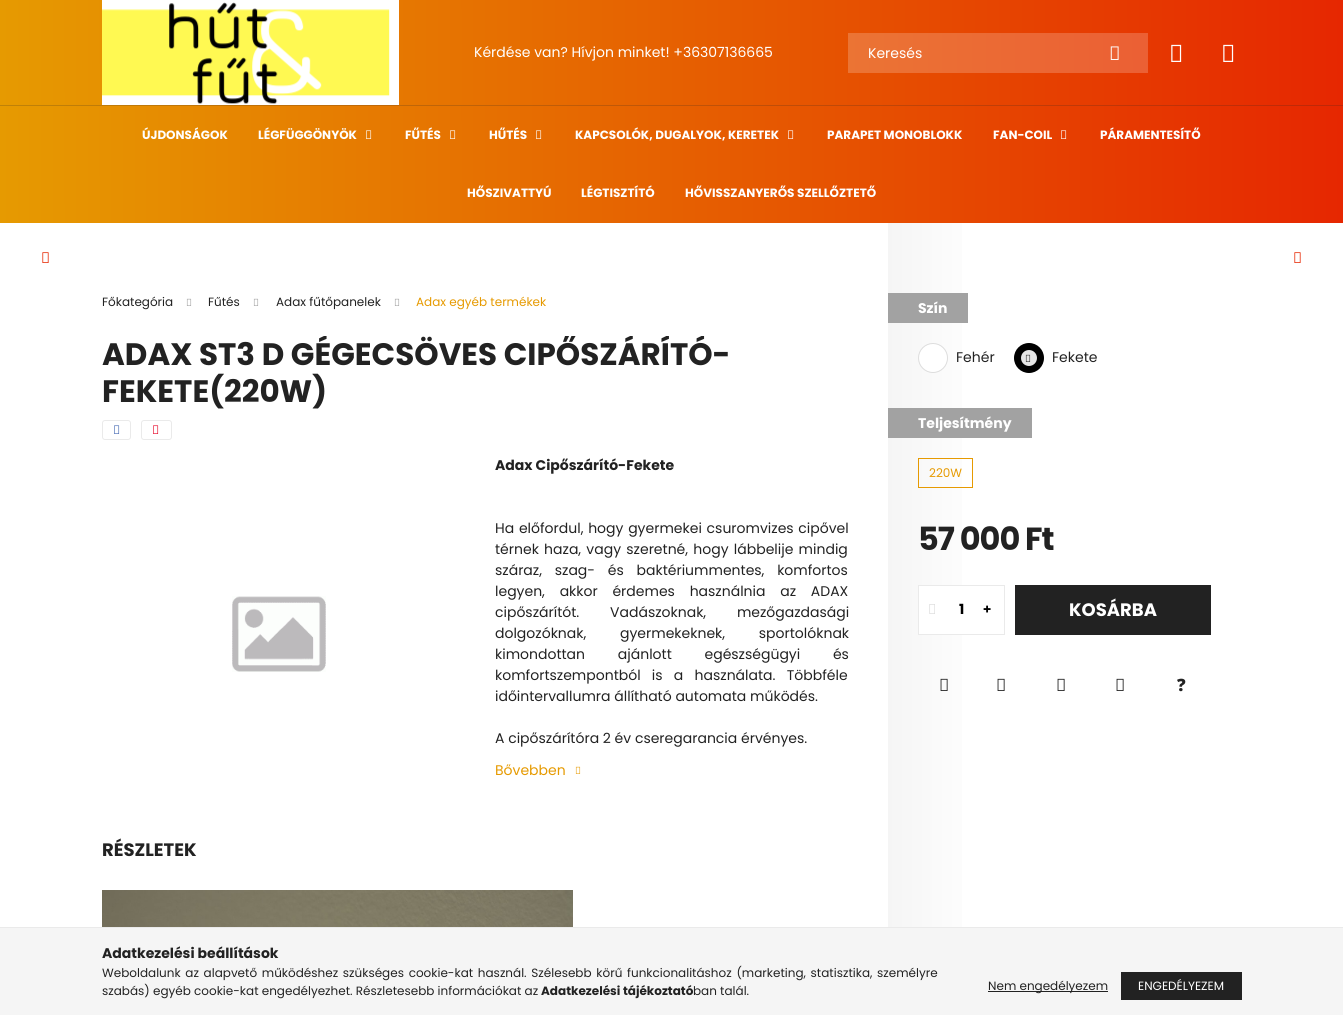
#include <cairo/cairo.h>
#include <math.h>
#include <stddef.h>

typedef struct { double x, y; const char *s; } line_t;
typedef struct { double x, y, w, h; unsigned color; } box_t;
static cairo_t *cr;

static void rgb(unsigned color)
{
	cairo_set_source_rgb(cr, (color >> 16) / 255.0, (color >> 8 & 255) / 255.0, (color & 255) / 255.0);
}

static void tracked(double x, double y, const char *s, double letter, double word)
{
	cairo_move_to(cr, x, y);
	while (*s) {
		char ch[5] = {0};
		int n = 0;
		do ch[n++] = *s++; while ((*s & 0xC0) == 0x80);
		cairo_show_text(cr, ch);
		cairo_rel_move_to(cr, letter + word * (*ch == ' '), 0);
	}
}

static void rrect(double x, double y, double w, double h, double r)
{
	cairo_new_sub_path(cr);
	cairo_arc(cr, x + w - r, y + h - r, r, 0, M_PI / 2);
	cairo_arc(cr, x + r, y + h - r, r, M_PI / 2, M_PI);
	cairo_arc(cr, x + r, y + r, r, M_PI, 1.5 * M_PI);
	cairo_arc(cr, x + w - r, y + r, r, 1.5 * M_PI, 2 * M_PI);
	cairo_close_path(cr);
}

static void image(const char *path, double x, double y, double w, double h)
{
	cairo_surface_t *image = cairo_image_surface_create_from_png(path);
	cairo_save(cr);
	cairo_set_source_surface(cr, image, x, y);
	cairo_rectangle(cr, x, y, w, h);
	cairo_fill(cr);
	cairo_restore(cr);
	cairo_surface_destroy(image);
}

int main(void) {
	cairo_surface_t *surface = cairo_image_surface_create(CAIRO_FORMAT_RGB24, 1343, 1015);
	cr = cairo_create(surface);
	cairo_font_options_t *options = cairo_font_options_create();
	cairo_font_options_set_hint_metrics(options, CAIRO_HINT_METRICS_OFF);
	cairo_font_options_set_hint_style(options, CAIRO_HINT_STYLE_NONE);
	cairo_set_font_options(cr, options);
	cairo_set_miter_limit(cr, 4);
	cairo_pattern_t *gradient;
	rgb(0xffffff);
	cairo_paint(cr);
	gradient = cairo_pattern_create_linear(0, 53, 1343, 52);
	cairo_pattern_add_color_stop_rgba(gradient, 0, 0.902, 0.604, 0.004, 1);
	cairo_pattern_add_color_stop_rgba(gradient, 1, 0.902, 0.153, 0.004, 1);
	cairo_set_source(cr, gradient);
	cairo_pattern_destroy(gradient);
	cairo_rectangle(cr, 0, 0, 1343, 105);
	cairo_fill(cr);
	gradient = cairo_pattern_create_linear(0, 53, 1343, 52);
	cairo_pattern_add_color_stop_rgba(gradient, 0, 0.922, 0.682, 0.204, 1);
	cairo_pattern_add_color_stop_rgba(gradient, 1, 0.922, 0.322, 0.204, 1);
	cairo_set_source(cr, gradient);
	cairo_pattern_destroy(gradient);
	cairo_rectangle(cr, 848, 33, 300, 40);
	cairo_fill(cr);
	image("img/1.png", 102, 0, 297, 105);
	image("img/2.png", 1110, 46, 9, 14);
	image("img/3.png", 1171, 44, 11, 18);
	image("img/4.png", 1223, 44, 11, 18);
	gradient = cairo_pattern_create_linear(0, 165, 1343, 164);
	cairo_pattern_add_color_stop_rgba(gradient, 0, 0.902, 0.604, 0.004, 1);
	cairo_pattern_add_color_stop_rgba(gradient, 1, 0.902, 0.153, 0.004, 1);
	cairo_set_source(cr, gradient);
	cairo_pattern_destroy(gradient);
	cairo_rectangle(cr, 0, 106, 1343, 117);
	cairo_fill(cr);
	gradient = cairo_pattern_create_linear(0, 165, 1343, 164);
	cairo_pattern_add_color_stop_rgba(gradient, 0, 0.749, 0.51, 0.031, 1);
	cairo_pattern_add_color_stop_rgba(gradient, 1, 0.749, 0.149, 0.031, 1);
	cairo_set_source(cr, gradient);
	cairo_pattern_destroy(gradient);
	cairo_rectangle(cr, 0, 105, 1343, 1);
	cairo_fill(cr);
	image("img/5.png", 366, 130, 6, 9);
	image("img/6.png", 450, 130, 6, 9);
	image("img/7.png", 536, 130, 6, 9);
	image("img/8.png", 788, 130, 6, 9);
	image("img/9.png", 1061, 130, 6, 9);
	image("img/10.png", 42, 252, 7, 11);
	image("img/10.png", 1294, 252, 7, 11);
	image("img/11.png", 186, 298, 6, 8);
	image("img/11.png", 253, 298, 6, 8);
	image("img/11.png", 394, 298, 6, 8);
	rrect(102.5, 420.5, 28, 19, 2.5);
	rgb(0xeaeaea);
	cairo_set_line_width(cr, 1);
	cairo_stroke(cr);
	image("img/12.png", 114, 425, 6, 9);
	rrect(141.5, 420.5, 30, 19, 2.5);
	cairo_stroke(cr);
	image("img/13.png", 153, 425, 6, 9);
	image("img/14.png", 232, 596, 94, 76);
	image("img/15.png", 575, 766, 6, 8);
	gradient = cairo_pattern_create_linear(888, 531, 1241, 531);
	cairo_pattern_add_color_stop_rgba(gradient, 0, 0.961, 0.961, 0.961, 1);
	cairo_pattern_add_color_stop_rgba(gradient, 0.28, 1, 1, 1, 1);
	cairo_pattern_add_color_stop_rgba(gradient, 1, 1, 1, 1, 1);
	cairo_set_source(cr, gradient);
	cairo_pattern_destroy(gradient);
	cairo_rectangle(cr, 888, 223, 74, 616);
	cairo_fill(cr);
	rgb(0xa2a2a2);
	cairo_rectangle(cr, 888, 293, 80, 30);
	cairo_fill(cr);
	rgb(0xffffff);
	cairo_arc(cr, 933, 358, 14.5, 0, 2 * M_PI);
	cairo_fill_preserve(cr);
	rgb(0xdddddd);
	cairo_stroke(cr);
	rgb(0x000000);
	cairo_arc(cr, 1029, 358, 15, 0, 2 * M_PI);
	cairo_fill(cr);
	rgb(0xe6e6e6);
	cairo_arc(cr, 1029, 358, 8, 0, 2 * M_PI);
	cairo_fill(cr);
	image("img/16.png", 1025, 354, 6, 8);
	rgb(0xa2a2a2);
	cairo_rectangle(cr, 888, 408, 144, 30);
	cairo_fill(cr);
	cairo_rectangle(cr, 918.5, 458.5, 54, 29);
	rgb(0xe69a01);
	cairo_stroke(cr);
	rgb(0xffffff);
	cairo_rectangle(cr, 919, 586, 43, 48);
	cairo_fill(cr);
	cairo_rectangle(cr, 918.5, 585.5, 86, 49);
	rgb(0xeaeaea);
	cairo_stroke(cr);
	image("img/17.png", 929, 604, 6, 10);
	gradient = cairo_pattern_create_linear(623, 610, 1211, 610);
	cairo_pattern_add_color_stop_rgba(gradient, 0, 0.902, 0.604, 0.004, 1);
	cairo_pattern_add_color_stop_rgba(gradient, 0.33, 0.902, 0.153, 0.004, 1);
	cairo_pattern_add_color_stop_rgba(gradient, 0.67, 0.133, 0.133, 0.133, 1);
	cairo_pattern_add_color_stop_rgba(gradient, 1, 0.133, 0.133, 0.133, 1);
	cairo_set_source(cr, gradient);
	cairo_pattern_destroy(gradient);
	cairo_rectangle(cr, 1015, 585, 196, 50);
	cairo_fill(cr);
	image("img/18.png", 940, 678, 8, 13);
	image("img/19.png", 997, 678, 8, 13);
	image("img/19.png", 1057, 678, 8, 13);
	image("img/19.png", 1116, 678, 8, 13);
	image("img/20.png", 102, 890, 471, 37);
	gradient = cairo_pattern_create_linear(888, 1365, 1241, 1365);
	cairo_pattern_add_color_stop_rgba(gradient, 0, 0.961, 0.961, 0.961, 1);
	cairo_pattern_add_color_stop_rgba(gradient, 0.28, 1, 1, 1, 1);
	cairo_pattern_add_color_stop_rgba(gradient, 1, 1, 1, 1, 1);
	cairo_set_source(cr, gradient);
	cairo_pattern_destroy(gradient);
	cairo_rectangle(cr, 888, 839, 74, 88);
	cairo_fill(cr);
	{
		static const box_t items[] = {
			{0, 928, 1343, 87, 0xf5f5f5},
			{0, 927, 1343, 1, 0xeaeaea},
			{988, 991, 120, 1, 0x222222},
		};
		for (size_t i = 0; i < sizeof items / sizeof *items; i++) {
			rgb(items[i].color);
			cairo_rectangle(cr, items[i].x, items[i].y, items[i].w, items[i].h);
			cairo_fill(cr);
		}
	}
	gradient = cairo_pattern_create_linear(879, 986, 1242, 986);
	cairo_pattern_add_color_stop_rgba(gradient, 0, 0.902, 0.604, 0.004, 1);
	cairo_pattern_add_color_stop_rgba(gradient, 0.33, 0.902, 0.153, 0.004, 1);
	cairo_pattern_add_color_stop_rgba(gradient, 0.67, 0.133, 0.133, 0.133, 1);
	cairo_pattern_add_color_stop_rgba(gradient, 1, 0.133, 0.133, 0.133, 1);
	cairo_set_source(cr, gradient);
	cairo_pattern_destroy(gradient);
	cairo_rectangle(cr, 1121, 972, 121, 28);
	cairo_fill(cr);
	cairo_select_font_face(cr, "Poppins", CAIRO_FONT_SLANT_NORMAL, CAIRO_FONT_WEIGHT_NORMAL);
	cairo_set_font_size(cr, 14);
	rgb(0xffffff);
	cairo_move_to(cr, 474, 57);
	cairo_show_text(cr, "Kérdése van? Hívjon minket! +36307136665");
	cairo_move_to(cr, 868, 58);
	cairo_show_text(cr, "Keresés");
	cairo_select_font_face(cr, "Poppins", CAIRO_FONT_SLANT_NORMAL, CAIRO_FONT_WEIGHT_BOLD);
	cairo_set_font_size(cr, 12);
	{
		static const line_t items[] = {
			{142, 139, "ÚJDONSÁGOK"},
			{258, 139, "LÉGFÜGGÖNYÖK"},
			{405, 139, "FŰTÉS"},
			{489, 139, "HŰTÉS"},
			{575, 139, "KAPCSOLÓK, DUGALYOK, KERETEK"},
			{827, 139, "PARAPET MONOBLOKK"},
			{993, 139, "FAN-COIL"},
			{1100, 139, "PÁRAMENTESÍTŐ"},
			{467, 197, "HŐSZIVATTYÚ"},
			{581, 197, "LÉGTISZTÍTÓ"},
			{685, 197, "HŐVISSZANYERŐS SZELLŐZTETŐ"},
		};
		for (size_t i = 0; i < sizeof items / sizeof *items; i++) {
			cairo_move_to(cr, items[i].x, items[i].y);
			cairo_show_text(cr, items[i].s);
		}
	}
	cairo_select_font_face(cr, "Poppins", CAIRO_FONT_SLANT_NORMAL, CAIRO_FONT_WEIGHT_NORMAL);
	rgb(0x222222);
	{
		static const line_t items[] = {
			{102, 306, "Főkategória"},
			{208, 306, "Fűtés"},
			{276, 306, "Adax fűtőpanelek"},
		};
		for (size_t i = 0; i < sizeof items / sizeof *items; i++) {
			cairo_move_to(cr, items[i].x, items[i].y);
			cairo_show_text(cr, items[i].s);
		}
	}
	rgb(0xe69a01);
	cairo_move_to(cr, 416, 306);
	cairo_show_text(cr, "Adax egyéb termékek");
	cairo_save(cr);
	cairo_rectangle(cr, 102, 336, 746, 74);
	cairo_clip(cr);
	cairo_select_font_face(cr, "Poppins", CAIRO_FONT_SLANT_NORMAL, CAIRO_FONT_WEIGHT_BOLD);
	cairo_set_font_size(cr, 31);
	rgb(0x222222);
	cairo_move_to(cr, 102, 365);
	cairo_show_text(cr, "ADAX ST3 D GÉGECSÖVES CIPŐSZÁRÍTÓ-");
	cairo_restore(cr);
	cairo_select_font_face(cr, "Poppins", CAIRO_FONT_SLANT_NORMAL, CAIRO_FONT_WEIGHT_BOLD);
	cairo_set_font_size(cr, 31);
	rgb(0x222222);
	cairo_move_to(cr, 102, 402);
	cairo_show_text(cr, "FEKETE(220W)");
	cairo_set_font_size(cr, 14);
	cairo_move_to(cr, 495, 470);
	cairo_show_text(cr, "Adax Cipőszárító-Fekete");
	cairo_select_font_face(cr, "Poppins", CAIRO_FONT_SLANT_NORMAL, CAIRO_FONT_WEIGHT_NORMAL);
	tracked(495, 533, "Ha előfordul, hogy gyermekei csuromvizes cipővel", 0, 1);
	tracked(495, 554, "térnek haza, vagy szeretné, hogy lábbelije mindig", 0, 1.5);
	tracked(495, 575, "száraz, szag- és baktériummentes, komfortos", 0, 9);
	tracked(495, 596, "legyen, akkor érdemes használnia az ADAX", 0, 11);
	tracked(495, 617, "cipőszárítót. Vadászoknak, mezőgazdasági", 0, 27);
	tracked(495, 638, "dolgozóknak, gyermekeknek, sportolóknak", 0, 30);
	tracked(495, 659, "kimondottan ajánlott egészségügyi és", 0, 29);
	tracked(495, 680, "komfortszempontból is a használata. Többféle", 0, 7.5);
	cairo_move_to(cr, 495, 701);
	cairo_show_text(cr, "időintervallumra állítható automata működés.");
	cairo_move_to(cr, 495, 743);
	cairo_show_text(cr, "A cipőszárítóra 2 év cseregarancia érvényes.");
	rgb(0xe69a01);
	cairo_move_to(cr, 495, 775);
	cairo_show_text(cr, "Bővebben");
	cairo_select_font_face(cr, "Poppins", CAIRO_FONT_SLANT_NORMAL, CAIRO_FONT_WEIGHT_BOLD);
	rgb(0xffffff);
	cairo_move_to(cr, 918, 313);
	cairo_show_text(cr, "Szín");
	cairo_select_font_face(cr, "Poppins", CAIRO_FONT_SLANT_NORMAL, CAIRO_FONT_WEIGHT_NORMAL);
	rgb(0x222222);
	cairo_move_to(cr, 956, 362);
	cairo_show_text(cr, "Fehér");
	cairo_move_to(cr, 1052, 362);
	cairo_show_text(cr, "Fekete");
	cairo_select_font_face(cr, "Poppins", CAIRO_FONT_SLANT_NORMAL, CAIRO_FONT_WEIGHT_BOLD);
	rgb(0xffffff);
	cairo_move_to(cr, 918, 428);
	cairo_show_text(cr, "Teljesítmény");
	cairo_select_font_face(cr, "Poppins", CAIRO_FONT_SLANT_NORMAL, CAIRO_FONT_WEIGHT_NORMAL);
	cairo_set_font_size(cr, 12);
	rgb(0xe69a01);
	cairo_move_to(cr, 929, 477);
	cairo_show_text(cr, "220W");
	cairo_select_font_face(cr, "Poppins", CAIRO_FONT_SLANT_NORMAL, CAIRO_FONT_WEIGHT_BOLD);
	cairo_set_font_size(cr, 32);
	rgb(0x222222);
	tracked(918, 550, "57 000 Ft", -1, 0);
	cairo_set_font_size(cr, 14);
	rgb(0x000000);
	cairo_move_to(cr, 959, 614);
	cairo_show_text(cr, "1");
	cairo_select_font_face(cr, "Noto Sans Black", CAIRO_FONT_SLANT_NORMAL, CAIRO_FONT_WEIGHT_NORMAL);
	cairo_move_to(cr, 983, 614);
	cairo_show_text(cr, "+");
	cairo_select_font_face(cr, "Poppins", CAIRO_FONT_SLANT_NORMAL, CAIRO_FONT_WEIGHT_BOLD);
	cairo_set_font_size(cr, 18);
	rgb(0xffffff);
	cairo_move_to(cr, 1069, 616);
	cairo_show_text(cr, "KOSÁRBA");
	cairo_select_font_face(cr, "Noto Sans Black", CAIRO_FONT_SLANT_NORMAL, CAIRO_FONT_WEIGHT_NORMAL);
	cairo_set_font_size(cr, 17);
	rgb(0x222222);
	cairo_move_to(cr, 1177, 691);
	cairo_show_text(cr, "?");
	cairo_select_font_face(cr, "Poppins", CAIRO_FONT_SLANT_NORMAL, CAIRO_FONT_WEIGHT_BOLD);
	cairo_set_font_size(cr, 18);
	cairo_move_to(cr, 102, 856);
	cairo_show_text(cr, "RÉSZLETEK");
	cairo_set_font_size(cr, 14);
	cairo_move_to(cr, 102, 958);
	cairo_show_text(cr, "Adatkezelési beállítások");
	cairo_select_font_face(cr, "Poppins", CAIRO_FONT_SLANT_NORMAL, CAIRO_FONT_WEIGHT_NORMAL);
	cairo_set_font_size(cr, 12);
	tracked(102, 977, "Weboldalunk az alapvető működéshez szükséges cookie-kat használ. Szélesebb körű funkcionalitáshoz (marketing, statisztika, személyre", 0, 1.5);
	cairo_move_to(cr, 102, 995);
	cairo_show_text(cr, "szabás) egyéb cookie-kat engedélyezhet. Részletesebb információkat az");
	cairo_select_font_face(cr, "Poppins", CAIRO_FONT_SLANT_NORMAL, CAIRO_FONT_WEIGHT_BOLD);
	cairo_move_to(cr, 541, 995);
	cairo_show_text(cr, "Adatkezelési tájékoztató");
	cairo_select_font_face(cr, "Poppins", CAIRO_FONT_SLANT_NORMAL, CAIRO_FONT_WEIGHT_NORMAL);
	cairo_move_to(cr, 693, 995);
	cairo_show_text(cr, "ban talál.");
	cairo_move_to(cr, 988, 990);
	cairo_show_text(cr, "Nem engedélyezem");
	rgb(0xffffff);
	cairo_move_to(cr, 1138, 990);
	cairo_show_text(cr, "ENGEDÉLYEZEM");
	cairo_surface_write_to_png(surface, "page.png");
	cairo_font_options_destroy(options);
	cairo_destroy(cr);
	cairo_surface_destroy(surface);
	return 0;
}
